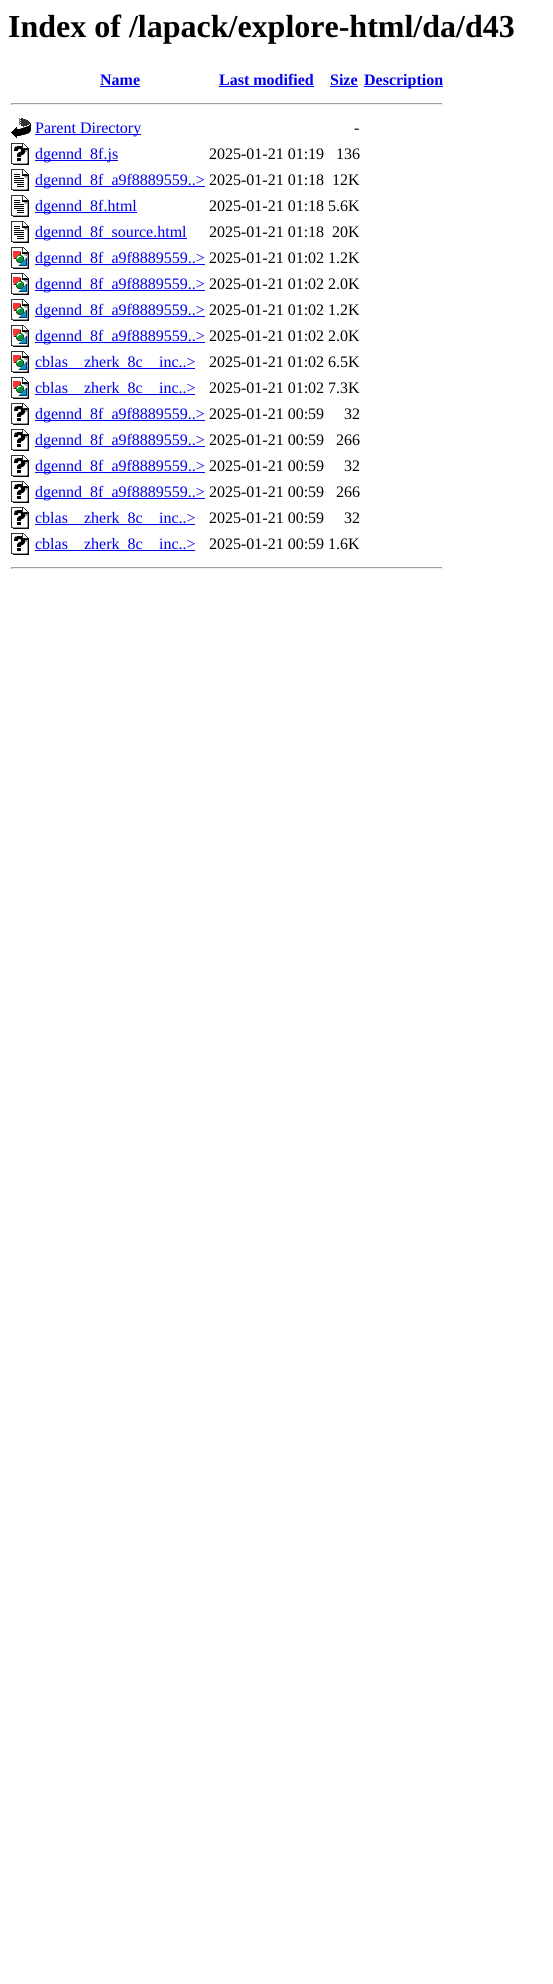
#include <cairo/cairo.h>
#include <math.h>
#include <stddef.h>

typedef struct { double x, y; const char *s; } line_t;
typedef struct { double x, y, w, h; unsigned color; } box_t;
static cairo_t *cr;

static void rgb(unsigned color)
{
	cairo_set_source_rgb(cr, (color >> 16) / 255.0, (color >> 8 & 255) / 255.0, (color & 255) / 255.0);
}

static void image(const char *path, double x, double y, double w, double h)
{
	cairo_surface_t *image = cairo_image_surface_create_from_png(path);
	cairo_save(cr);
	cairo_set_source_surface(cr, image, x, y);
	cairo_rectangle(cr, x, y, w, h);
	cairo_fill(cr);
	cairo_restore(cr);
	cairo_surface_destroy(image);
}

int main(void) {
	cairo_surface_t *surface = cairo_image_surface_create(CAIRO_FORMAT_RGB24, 553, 1984);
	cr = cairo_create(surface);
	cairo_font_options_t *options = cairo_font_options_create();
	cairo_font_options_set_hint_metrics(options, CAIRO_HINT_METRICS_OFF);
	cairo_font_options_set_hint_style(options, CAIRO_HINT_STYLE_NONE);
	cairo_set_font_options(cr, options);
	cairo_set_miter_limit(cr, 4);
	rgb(0xffffff);
	cairo_paint(cr);
	{
		static const box_t items[] = {
			{100, 86, 40, 1, 0x0000ee},
			{219, 86, 95, 1, 0x0000ee},
			{330, 86, 28, 1, 0x0000ee},
			{364, 86, 79, 1, 0x0000ee},
			{11, 103, 432, 1, 0x9f9f9f},
			{442, 103, 1, 2, 0xeeeeee},
			{11, 104, 432, 1, 0xeeeeee},
			{11, 103, 1, 2, 0x9f9f9f},
		};
		for (size_t i = 0; i < sizeof items / sizeof *items; i++) {
			rgb(items[i].color);
			cairo_rectangle(cr, items[i].x, items[i].y, items[i].w, items[i].h);
			cairo_fill(cr);
		}
	}
	image("img/1.png", 11, 118, 20, 20);
	rgb(0x0000ee);
	cairo_rectangle(cr, 35, 134, 106, 1);
	cairo_fill(cr);
	image("img/2.png", 11, 143, 18, 22);
	cairo_rectangle(cr, 35, 160, 83, 1);
	cairo_fill(cr);
	image("img/3.png", 11, 169, 18, 22);
	cairo_rectangle(cr, 35, 186, 170, 1);
	cairo_fill(cr);
	image("img/3.png", 11, 195, 18, 22);
	cairo_rectangle(cr, 35, 212, 102, 1);
	cairo_fill(cr);
	image("img/3.png", 11, 221, 18, 22);
	cairo_rectangle(cr, 35, 238, 152, 1);
	cairo_fill(cr);
	image("img/4.png", 11, 247, 18, 22);
	cairo_rectangle(cr, 35, 264, 170, 1);
	cairo_fill(cr);
	image("img/4.png", 11, 273, 18, 22);
	cairo_rectangle(cr, 35, 290, 170, 1);
	cairo_fill(cr);
	image("img/4.png", 11, 299, 18, 22);
	cairo_rectangle(cr, 35, 316, 170, 1);
	cairo_fill(cr);
	image("img/4.png", 11, 325, 18, 22);
	cairo_rectangle(cr, 35, 342, 170, 1);
	cairo_fill(cr);
	image("img/4.png", 11, 351, 18, 22);
	cairo_rectangle(cr, 35, 368, 160, 1);
	cairo_fill(cr);
	image("img/4.png", 11, 377, 18, 22);
	cairo_rectangle(cr, 35, 394, 160, 1);
	cairo_fill(cr);
	image("img/2.png", 11, 403, 18, 22);
	cairo_rectangle(cr, 35, 420, 170, 1);
	cairo_fill(cr);
	image("img/2.png", 11, 429, 18, 22);
	cairo_rectangle(cr, 35, 446, 170, 1);
	cairo_fill(cr);
	image("img/2.png", 11, 455, 18, 22);
	cairo_rectangle(cr, 35, 472, 170, 1);
	cairo_fill(cr);
	image("img/2.png", 11, 481, 18, 22);
	cairo_rectangle(cr, 35, 498, 170, 1);
	cairo_fill(cr);
	image("img/2.png", 11, 507, 18, 22);
	cairo_rectangle(cr, 35, 524, 160, 1);
	cairo_fill(cr);
	image("img/2.png", 11, 533, 18, 22);
	{
		static const box_t items[] = {
			{35, 550, 160, 1, 0x0000ee},
			{11, 567, 432, 1, 0x9f9f9f},
			{442, 567, 1, 2, 0xeeeeee},
			{11, 568, 432, 1, 0xeeeeee},
			{11, 567, 1, 2, 0x9f9f9f},
		};
		for (size_t i = 0; i < sizeof items / sizeof *items; i++) {
			rgb(items[i].color);
			cairo_rectangle(cr, items[i].x, items[i].y, items[i].w, items[i].h);
			cairo_fill(cr);
		}
	}
	cairo_select_font_face(cr, "Liberation Serif", CAIRO_FONT_SLANT_NORMAL, CAIRO_FONT_WEIGHT_BOLD);
	cairo_set_font_size(cr, 32);
	rgb(0x000000);
	cairo_move_to(cr, 8, 37);
	cairo_show_text(cr, "Index of /lapack/explore-html/da/d43");
	cairo_set_font_size(cr, 16);
	rgb(0x0000ee);
	{
		static const line_t items[] = {
			{100, 85, "Name"},
			{219, 85, "Last modified"},
			{330, 85, "Size"},
			{364, 85, "Description"},
		};
		for (size_t i = 0; i < sizeof items / sizeof *items; i++) {
			cairo_move_to(cr, items[i].x, items[i].y);
			cairo_show_text(cr, items[i].s);
		}
	}
	cairo_select_font_face(cr, "Liberation Serif", CAIRO_FONT_SLANT_NORMAL, CAIRO_FONT_WEIGHT_NORMAL);
	cairo_move_to(cr, 35, 133);
	cairo_show_text(cr, "Parent Directory");
	rgb(0x000000);
	cairo_move_to(cr, 354, 133);
	cairo_show_text(cr, "-");
	rgb(0x0000ee);
	cairo_move_to(cr, 35, 159);
	cairo_show_text(cr, "dgennd_8f.js");
	rgb(0x000000);
	cairo_move_to(cr, 209, 159);
	cairo_show_text(cr, "2025-01-21 01:19");
	cairo_move_to(cr, 336, 159);
	cairo_show_text(cr, "136");
	rgb(0x0000ee);
	cairo_move_to(cr, 35, 185);
	cairo_show_text(cr, "dgennd_8f_a9f8889559..>");
	rgb(0x000000);
	cairo_move_to(cr, 209, 185);
	cairo_show_text(cr, "2025-01-21 01:18");
	cairo_move_to(cr, 332, 185);
	cairo_show_text(cr, "12K");
	rgb(0x0000ee);
	cairo_move_to(cr, 35, 211);
	cairo_show_text(cr, "dgennd_8f.html");
	rgb(0x000000);
	cairo_move_to(cr, 209, 211);
	cairo_show_text(cr, "2025-01-21 01:18 5.6K");
	rgb(0x0000ee);
	cairo_move_to(cr, 35, 237);
	cairo_show_text(cr, "dgennd_8f_source.html");
	rgb(0x000000);
	cairo_move_to(cr, 209, 237);
	cairo_show_text(cr, "2025-01-21 01:18");
	cairo_move_to(cr, 332, 237);
	cairo_show_text(cr, "20K");
	rgb(0x0000ee);
	cairo_move_to(cr, 35, 263);
	cairo_show_text(cr, "dgennd_8f_a9f8889559..>");
	rgb(0x000000);
	cairo_move_to(cr, 209, 263);
	cairo_show_text(cr, "2025-01-21 01:02 1.2K");
	rgb(0x0000ee);
	cairo_move_to(cr, 35, 289);
	cairo_show_text(cr, "dgennd_8f_a9f8889559..>");
	rgb(0x000000);
	cairo_move_to(cr, 209, 289);
	cairo_show_text(cr, "2025-01-21 01:02 2.0K");
	rgb(0x0000ee);
	cairo_move_to(cr, 35, 315);
	cairo_show_text(cr, "dgennd_8f_a9f8889559..>");
	rgb(0x000000);
	cairo_move_to(cr, 209, 315);
	cairo_show_text(cr, "2025-01-21 01:02 1.2K");
	rgb(0x0000ee);
	cairo_move_to(cr, 35, 341);
	cairo_show_text(cr, "dgennd_8f_a9f8889559..>");
	rgb(0x000000);
	cairo_move_to(cr, 209, 341);
	cairo_show_text(cr, "2025-01-21 01:02 2.0K");
	rgb(0x0000ee);
	{
		static const line_t items[] = {
			{35, 367, "cblas"},
			{84, 367, "zherk_8c"},
			{159, 367, "inc..>"},
		};
		for (size_t i = 0; i < sizeof items / sizeof *items; i++) {
			cairo_move_to(cr, items[i].x, items[i].y);
			cairo_show_text(cr, items[i].s);
		}
	}
	rgb(0x000000);
	cairo_move_to(cr, 209, 367);
	cairo_show_text(cr, "2025-01-21 01:02 6.5K");
	rgb(0x0000ee);
	{
		static const line_t items[] = {
			{35, 393, "cblas"},
			{84, 393, "zherk_8c"},
			{159, 393, "inc..>"},
		};
		for (size_t i = 0; i < sizeof items / sizeof *items; i++) {
			cairo_move_to(cr, items[i].x, items[i].y);
			cairo_show_text(cr, items[i].s);
		}
	}
	rgb(0x000000);
	cairo_move_to(cr, 209, 393);
	cairo_show_text(cr, "2025-01-21 01:02 7.3K");
	rgb(0x0000ee);
	cairo_move_to(cr, 35, 419);
	cairo_show_text(cr, "dgennd_8f_a9f8889559..>");
	rgb(0x000000);
	cairo_move_to(cr, 209, 419);
	cairo_show_text(cr, "2025-01-21 00:59");
	cairo_move_to(cr, 344, 419);
	cairo_show_text(cr, "32");
	rgb(0x0000ee);
	cairo_move_to(cr, 35, 445);
	cairo_show_text(cr, "dgennd_8f_a9f8889559..>");
	rgb(0x000000);
	cairo_move_to(cr, 209, 445);
	cairo_show_text(cr, "2025-01-21 00:59");
	cairo_move_to(cr, 336, 445);
	cairo_show_text(cr, "266");
	rgb(0x0000ee);
	cairo_move_to(cr, 35, 471);
	cairo_show_text(cr, "dgennd_8f_a9f8889559..>");
	rgb(0x000000);
	cairo_move_to(cr, 209, 471);
	cairo_show_text(cr, "2025-01-21 00:59");
	cairo_move_to(cr, 344, 471);
	cairo_show_text(cr, "32");
	rgb(0x0000ee);
	cairo_move_to(cr, 35, 497);
	cairo_show_text(cr, "dgennd_8f_a9f8889559..>");
	rgb(0x000000);
	cairo_move_to(cr, 209, 497);
	cairo_show_text(cr, "2025-01-21 00:59");
	cairo_move_to(cr, 336, 497);
	cairo_show_text(cr, "266");
	rgb(0x0000ee);
	{
		static const line_t items[] = {
			{35, 523, "cblas"},
			{84, 523, "zherk_8c"},
			{159, 523, "inc..>"},
		};
		for (size_t i = 0; i < sizeof items / sizeof *items; i++) {
			cairo_move_to(cr, items[i].x, items[i].y);
			cairo_show_text(cr, items[i].s);
		}
	}
	rgb(0x000000);
	cairo_move_to(cr, 209, 523);
	cairo_show_text(cr, "2025-01-21 00:59");
	cairo_move_to(cr, 344, 523);
	cairo_show_text(cr, "32");
	rgb(0x0000ee);
	{
		static const line_t items[] = {
			{35, 549, "cblas"},
			{84, 549, "zherk_8c"},
			{159, 549, "inc..>"},
		};
		for (size_t i = 0; i < sizeof items / sizeof *items; i++) {
			cairo_move_to(cr, items[i].x, items[i].y);
			cairo_show_text(cr, items[i].s);
		}
	}
	rgb(0x000000);
	cairo_move_to(cr, 209, 549);
	cairo_show_text(cr, "2025-01-21 00:59 1.6K");
	cairo_surface_write_to_png(surface, "page.png");
	cairo_font_options_destroy(options);
	cairo_destroy(cr);
	cairo_surface_destroy(surface);
	return 0;
}
